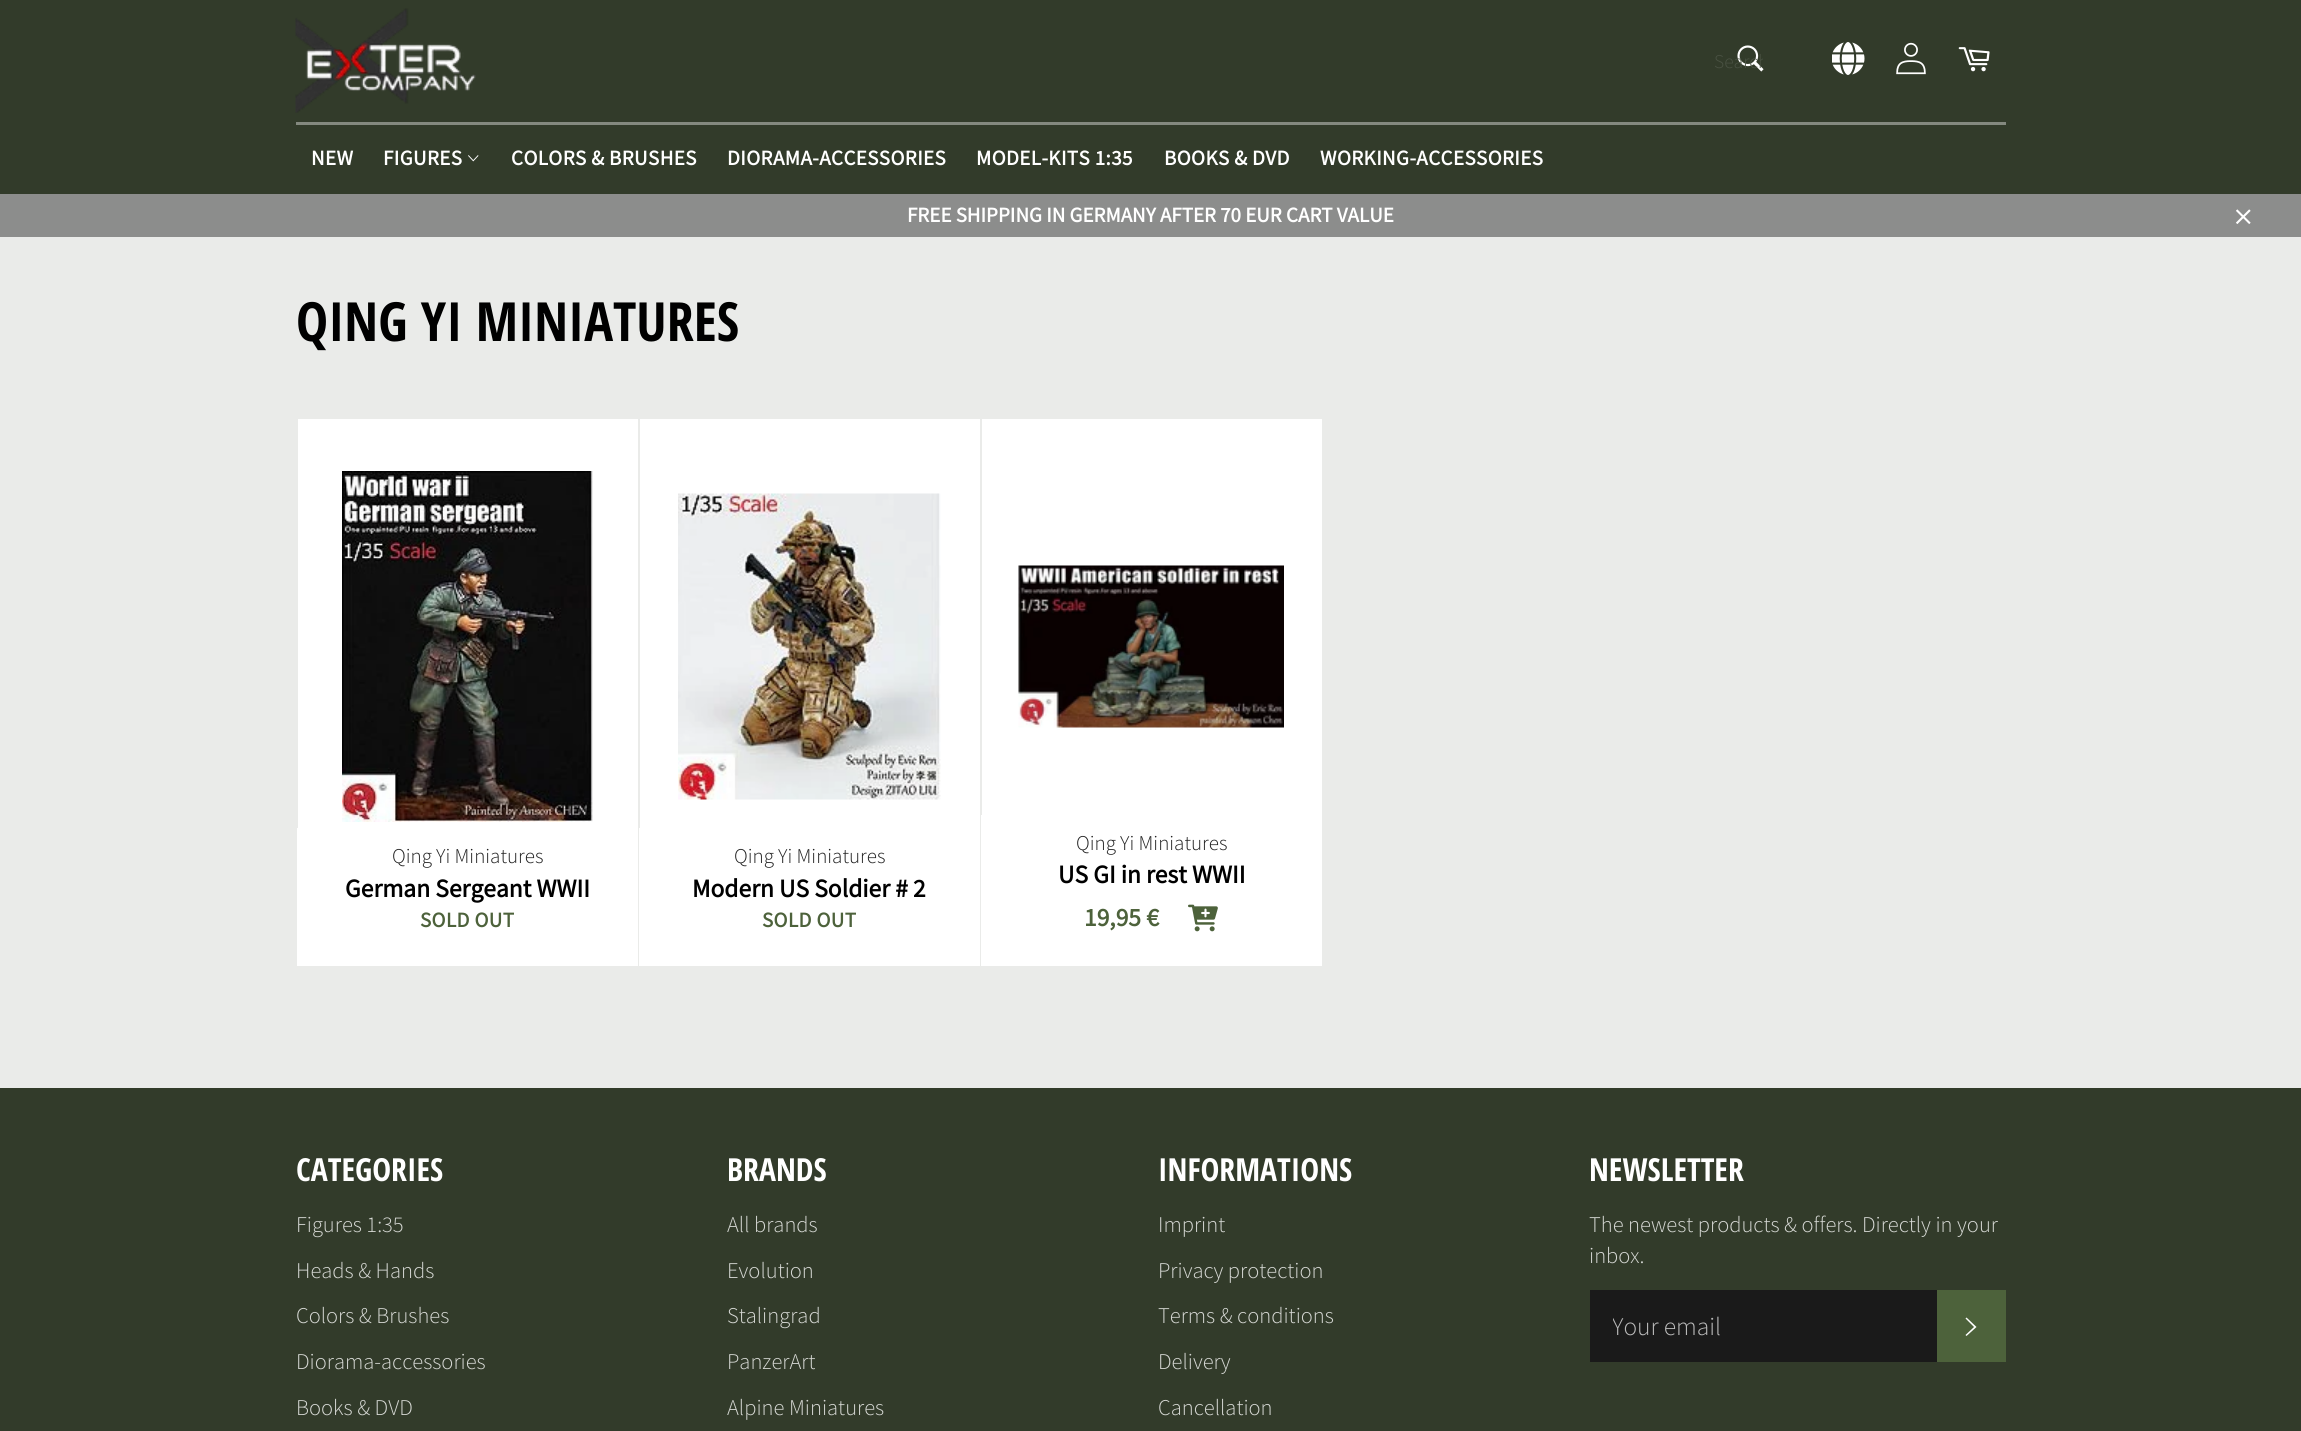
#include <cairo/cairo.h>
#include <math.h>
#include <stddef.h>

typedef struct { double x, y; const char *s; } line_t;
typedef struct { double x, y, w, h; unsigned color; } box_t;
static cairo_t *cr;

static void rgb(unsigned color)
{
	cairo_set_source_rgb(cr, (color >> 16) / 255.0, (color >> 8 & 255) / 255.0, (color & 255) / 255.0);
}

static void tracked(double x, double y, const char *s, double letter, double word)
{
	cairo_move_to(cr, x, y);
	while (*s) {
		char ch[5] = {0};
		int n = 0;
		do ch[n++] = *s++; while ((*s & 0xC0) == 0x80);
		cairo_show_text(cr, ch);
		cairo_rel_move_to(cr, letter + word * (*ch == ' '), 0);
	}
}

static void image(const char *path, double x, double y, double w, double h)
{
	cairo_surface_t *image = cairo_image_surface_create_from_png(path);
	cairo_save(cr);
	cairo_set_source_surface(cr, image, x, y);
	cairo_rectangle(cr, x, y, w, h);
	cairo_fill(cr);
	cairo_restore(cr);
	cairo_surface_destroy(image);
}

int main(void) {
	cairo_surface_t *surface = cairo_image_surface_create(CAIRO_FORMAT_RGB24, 2301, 1431);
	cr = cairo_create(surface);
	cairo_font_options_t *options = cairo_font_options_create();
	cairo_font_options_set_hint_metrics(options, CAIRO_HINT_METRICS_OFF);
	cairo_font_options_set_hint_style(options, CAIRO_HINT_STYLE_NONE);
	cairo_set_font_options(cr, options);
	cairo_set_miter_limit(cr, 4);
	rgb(0xeaebe9);
	cairo_paint(cr);
	rgb(0x323b2a);
	cairo_rectangle(cr, 0, 0, 2301, 194);
	cairo_fill(cr);
	rgb(0x84897f);
	cairo_rectangle(cr, 296, 122, 1710, 3);
	cairo_fill(cr);
	image("img/1.png", 295, 8, 181, 105);
	image("img/2.png", 1737, 45, 27, 27);
	image("img/3.png", 1832, 42, 33, 33);
	image("img/4.png", 1896, 42, 30, 33);
	image("img/5.png", 1958, 47, 32, 25);
	image("img/6.png", 468, 155, 11, 7);
	rgb(0x8c8d8c);
	cairo_rectangle(cr, 0, 194, 2301, 43);
	cairo_fill(cr);
	image("img/7.png", 2236, 209, 15, 15);
	rgb(0xffffff);
	cairo_rectangle(cr, 298, 419, 340, 409);
	cairo_fill(cr);
	image("img/8.png", 342, 471, 251, 351);
	cairo_rectangle(cr, 297, 828, 341, 138);
	cairo_fill(cr);
	cairo_rectangle(cr, 640, 419, 340, 409);
	cairo_fill(cr);
	image("img/9.png", 678, 493, 263, 307);
	cairo_rectangle(cr, 639, 828, 341, 138);
	cairo_fill(cr);
	cairo_rectangle(cr, 982, 419, 340, 396);
	cairo_fill(cr);
	image("img/10.png", 1018, 565, 266, 163);
	cairo_rectangle(cr, 981, 815, 341, 151);
	cairo_fill(cr);
	image("img/11.png", 1188, 904, 30, 28);
	{
		static const box_t items[] = {
			{0, 1088, 2301, 343, 0x323b2a},
			{1590, 1290, 347, 72, 0x1a1a1a},
			{1937, 1290, 69, 72, 0x4d623b},
		};
		for (size_t i = 0; i < sizeof items / sizeof *items; i++) {
			rgb(items[i].color);
			cairo_rectangle(cr, items[i].x, items[i].y, items[i].w, items[i].h);
			cairo_fill(cr);
		}
	}
	rgb(0xffffff);
	cairo_new_path(cr);
	cairo_move_to(cr, 1965.5, 1318.5);
	cairo_line_to(cr, 1966.5, 1317.5);
	cairo_line_to(cr, 1976.5, 1327);
	cairo_line_to(cr, 1966.5, 1336);
	cairo_line_to(cr, 1965.5, 1335);
	cairo_line_to(cr, 1974, 1327);
	cairo_close_path(cr);
	cairo_fill(cr);
	cairo_save(cr);
	cairo_rectangle(cr, 1715, 48, 48, 26);
	cairo_clip(cr);
	cairo_select_font_face(cr, "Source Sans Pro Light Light", CAIRO_FONT_SLANT_NORMAL, CAIRO_FONT_WEIGHT_NORMAL);
	cairo_set_font_size(cr, 19.5);
	rgb(0x4a5243);
	cairo_move_to(cr, 1714, 68);
	cairo_show_text(cr, "Search");
	cairo_restore(cr);
	cairo_select_font_face(cr, "Source Sans Pro", CAIRO_FONT_SLANT_NORMAL, CAIRO_FONT_WEIGHT_BOLD);
	cairo_set_font_size(cr, 21);
	{
		static const line_t items[] = {
			{311, 165, "NEW"},
			{383, 165, "FIGURES"},
			{511, 165, "COLORS & BRUSHES"},
			{727, 165, "DIORAMA-ACCESSORIES"},
			{976, 165, "MODEL-KITS 1:35"},
			{1164, 165, "BOOKS & DVD"},
			{1320, 165, "WORKING-ACCESSORIES"},
		};
		for (size_t i = 0; i < sizeof items / sizeof *items; i++) {
			tracked(items[i].x, items[i].y, items[i].s, 0.4, 0);
		}
	}
	cairo_move_to(cr, 907, 222);
	cairo_show_text(cr, "FREE SHIPPING IN GERMANY AFTER 70 EUR CART VALUE");
	cairo_select_font_face(cr, "Open Sans Condensed", CAIRO_FONT_SLANT_NORMAL, CAIRO_FONT_WEIGHT_BOLD);
	cairo_set_font_size(cr, 54);
	rgb(0x000000);
	cairo_move_to(cr, 296, 341);
	cairo_show_text(cr, "QING YI MINIATURES");
	cairo_select_font_face(cr, "Source Sans Pro Light Light", CAIRO_FONT_SLANT_NORMAL, CAIRO_FONT_WEIGHT_NORMAL);
	cairo_set_font_size(cr, 21);
	rgb(0x202020);
	cairo_move_to(cr, 392, 863);
	cairo_show_text(cr, "Qing Yi Miniatures");
	cairo_select_font_face(cr, "Source Sans Pro", CAIRO_FONT_SLANT_NORMAL, CAIRO_FONT_WEIGHT_BOLD);
	cairo_set_font_size(cr, 25.5);
	rgb(0x000000);
	cairo_move_to(cr, 345, 897);
	cairo_show_text(cr, "German Sergeant WWII");
	cairo_set_font_size(cr, 21);
	rgb(0x4d623b);
	tracked(420, 927, "SOLD OUT", 0.4, 0);
	cairo_select_font_face(cr, "Source Sans Pro Light Light", CAIRO_FONT_SLANT_NORMAL, CAIRO_FONT_WEIGHT_NORMAL);
	rgb(0x202020);
	cairo_move_to(cr, 734, 863);
	cairo_show_text(cr, "Qing Yi Miniatures");
	cairo_select_font_face(cr, "Source Sans Pro", CAIRO_FONT_SLANT_NORMAL, CAIRO_FONT_WEIGHT_BOLD);
	cairo_set_font_size(cr, 25.5);
	rgb(0x000000);
	cairo_move_to(cr, 692, 897);
	cairo_show_text(cr, "Modern US Soldier # 2");
	cairo_set_font_size(cr, 21);
	rgb(0x4d623b);
	tracked(762, 927, "SOLD OUT", 0.4, 0);
	cairo_select_font_face(cr, "Source Sans Pro Light Light", CAIRO_FONT_SLANT_NORMAL, CAIRO_FONT_WEIGHT_NORMAL);
	rgb(0x202020);
	cairo_move_to(cr, 1076, 850);
	cairo_show_text(cr, "Qing Yi Miniatures");
	cairo_select_font_face(cr, "Source Sans Pro", CAIRO_FONT_SLANT_NORMAL, CAIRO_FONT_WEIGHT_BOLD);
	cairo_set_font_size(cr, 25.5);
	rgb(0x000000);
	cairo_move_to(cr, 1058, 883);
	cairo_show_text(cr, "US GI in rest WWII");
	rgb(0x4d623b);
	cairo_move_to(cr, 1084, 926);
	cairo_show_text(cr, "19,95 €");
	cairo_select_font_face(cr, "Open Sans Condensed", CAIRO_FONT_SLANT_NORMAL, CAIRO_FONT_WEIGHT_BOLD);
	cairo_set_font_size(cr, 31.75);
	rgb(0xffffff);
	cairo_move_to(cr, 296, 1181);
	cairo_show_text(cr, "CATEGORIES");
	cairo_select_font_face(cr, "Source Sans Pro Light Light", CAIRO_FONT_SLANT_NORMAL, CAIRO_FONT_WEIGHT_NORMAL);
	cairo_set_font_size(cr, 22.5);
	rgb(0xd6d8d4);
	{
		static const line_t items[] = {
			{296, 1232, "Figures 1:35"},
			{296, 1278, "Heads & Hands"},
			{296, 1323, "Colors & Brushes"},
			{296, 1369, "Diorama-accessories"},
			{296, 1415, "Books & DVD"},
		};
		for (size_t i = 0; i < sizeof items / sizeof *items; i++) {
			cairo_move_to(cr, items[i].x, items[i].y);
			cairo_show_text(cr, items[i].s);
		}
	}
	cairo_select_font_face(cr, "Open Sans Condensed", CAIRO_FONT_SLANT_NORMAL, CAIRO_FONT_WEIGHT_BOLD);
	cairo_set_font_size(cr, 31.75);
	rgb(0xffffff);
	cairo_move_to(cr, 727, 1181);
	cairo_show_text(cr, "BRANDS");
	cairo_select_font_face(cr, "Source Sans Pro Light Light", CAIRO_FONT_SLANT_NORMAL, CAIRO_FONT_WEIGHT_NORMAL);
	cairo_set_font_size(cr, 22.5);
	rgb(0xd6d8d4);
	{
		static const line_t items[] = {
			{727, 1232, "All brands"},
			{727, 1278, "Evolution"},
			{727, 1323, "Stalingrad"},
			{727, 1369, "PanzerArt"},
			{727, 1415, "Alpine Miniatures"},
		};
		for (size_t i = 0; i < sizeof items / sizeof *items; i++) {
			cairo_move_to(cr, items[i].x, items[i].y);
			cairo_show_text(cr, items[i].s);
		}
	}
	cairo_select_font_face(cr, "Open Sans Condensed", CAIRO_FONT_SLANT_NORMAL, CAIRO_FONT_WEIGHT_BOLD);
	cairo_set_font_size(cr, 31.75);
	rgb(0xffffff);
	cairo_move_to(cr, 1158, 1181);
	cairo_show_text(cr, "INFORMATIONS");
	cairo_select_font_face(cr, "Source Sans Pro Light Light", CAIRO_FONT_SLANT_NORMAL, CAIRO_FONT_WEIGHT_NORMAL);
	cairo_set_font_size(cr, 22.5);
	rgb(0xd6d8d4);
	{
		static const line_t items[] = {
			{1158, 1232, "Imprint"},
			{1158, 1278, "Privacy protection"},
			{1158, 1323, "Terms & conditions"},
			{1158, 1369, "Delivery"},
			{1158, 1415, "Cancellation"},
		};
		for (size_t i = 0; i < sizeof items / sizeof *items; i++) {
			cairo_move_to(cr, items[i].x, items[i].y);
			cairo_show_text(cr, items[i].s);
		}
	}
	cairo_select_font_face(cr, "Open Sans Condensed", CAIRO_FONT_SLANT_NORMAL, CAIRO_FONT_WEIGHT_BOLD);
	cairo_set_font_size(cr, 31.75);
	rgb(0xffffff);
	cairo_move_to(cr, 1589, 1181);
	cairo_show_text(cr, "NEWSLETTER");
	cairo_select_font_face(cr, "Source Sans Pro Light Light", CAIRO_FONT_SLANT_NORMAL, CAIRO_FONT_WEIGHT_NORMAL);
	cairo_set_font_size(cr, 22.5);
	rgb(0xd6d8d4);
	cairo_move_to(cr, 1589, 1232);
	cairo_show_text(cr, "The newest products & offers. Directly in your");
	cairo_move_to(cr, 1589, 1263);
	cairo_show_text(cr, "inbox.");
	cairo_save(cr);
	cairo_rectangle(cr, 1613, 1310, 301, 33);
	cairo_clip(cr);
	cairo_set_font_size(cr, 25.5);
	rgb(0xbababa);
	cairo_move_to(cr, 1612, 1335);
	cairo_show_text(cr, "Your email");
	cairo_restore(cr);
	cairo_surface_write_to_png(surface, "page.png");
	cairo_font_options_destroy(options);
	cairo_destroy(cr);
	cairo_surface_destroy(surface);
	return 0;
}
